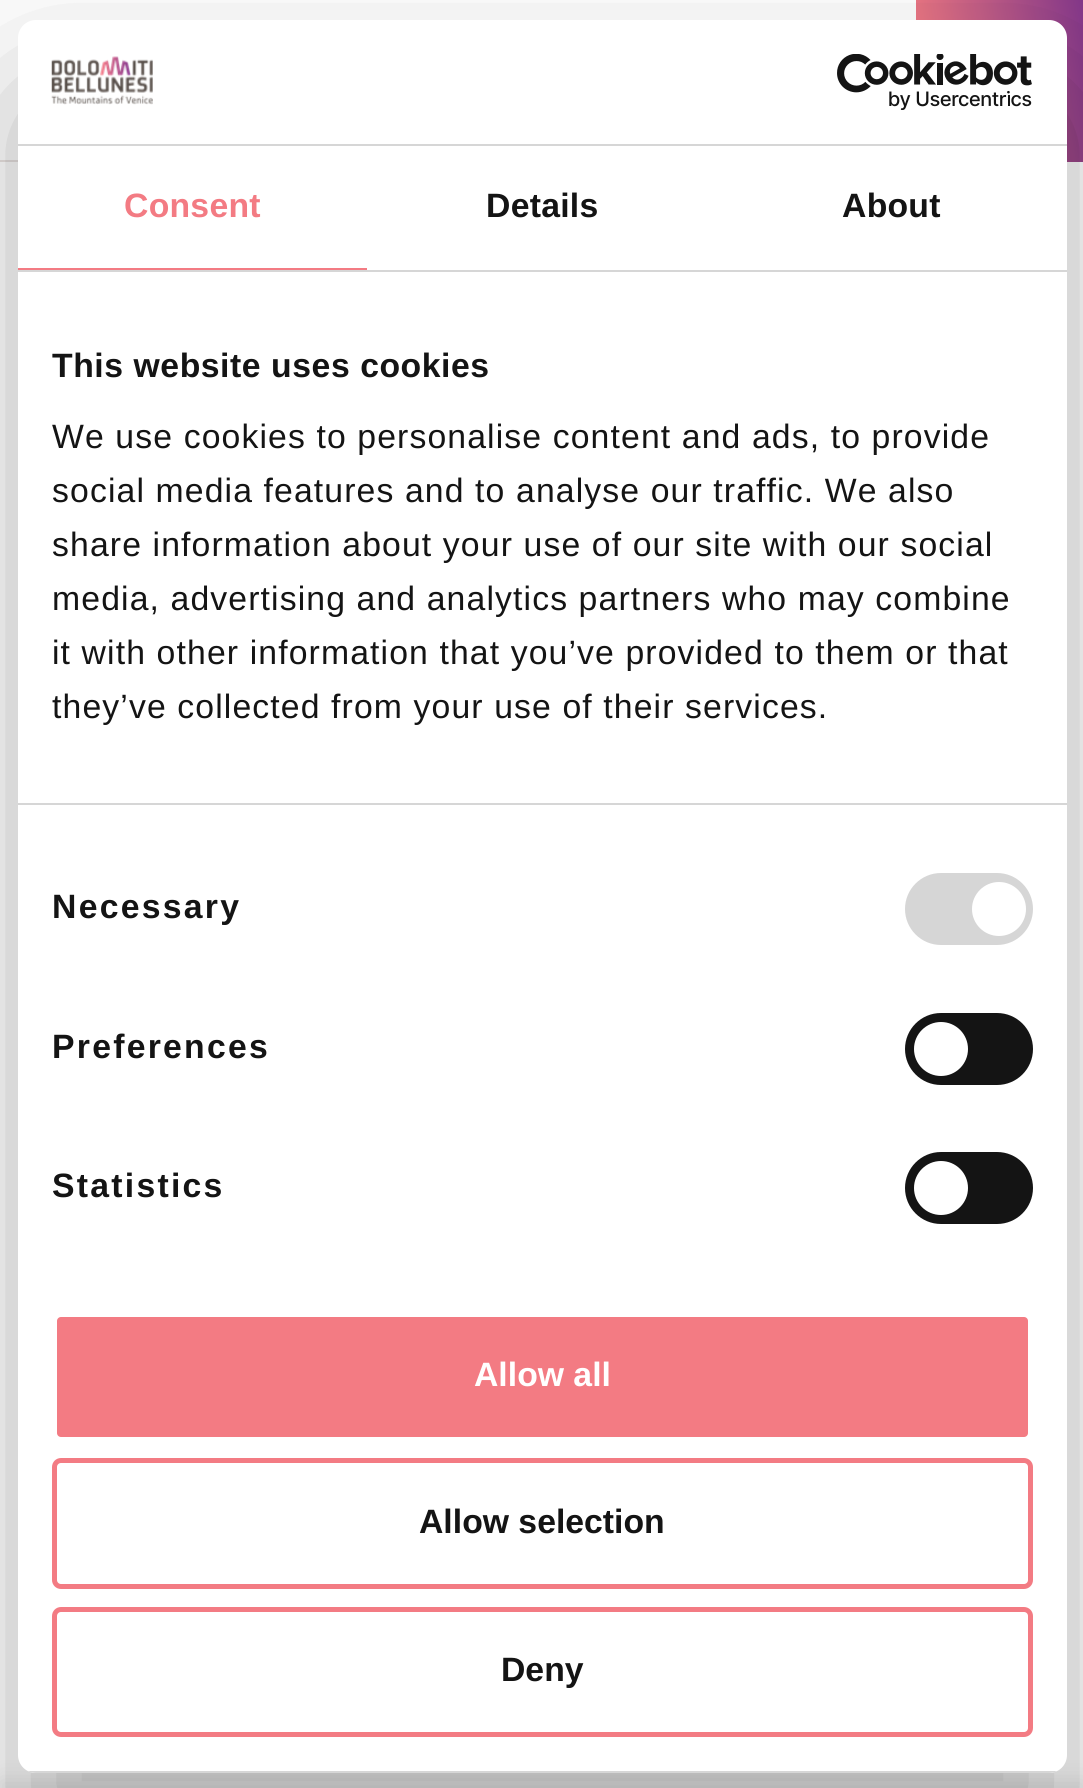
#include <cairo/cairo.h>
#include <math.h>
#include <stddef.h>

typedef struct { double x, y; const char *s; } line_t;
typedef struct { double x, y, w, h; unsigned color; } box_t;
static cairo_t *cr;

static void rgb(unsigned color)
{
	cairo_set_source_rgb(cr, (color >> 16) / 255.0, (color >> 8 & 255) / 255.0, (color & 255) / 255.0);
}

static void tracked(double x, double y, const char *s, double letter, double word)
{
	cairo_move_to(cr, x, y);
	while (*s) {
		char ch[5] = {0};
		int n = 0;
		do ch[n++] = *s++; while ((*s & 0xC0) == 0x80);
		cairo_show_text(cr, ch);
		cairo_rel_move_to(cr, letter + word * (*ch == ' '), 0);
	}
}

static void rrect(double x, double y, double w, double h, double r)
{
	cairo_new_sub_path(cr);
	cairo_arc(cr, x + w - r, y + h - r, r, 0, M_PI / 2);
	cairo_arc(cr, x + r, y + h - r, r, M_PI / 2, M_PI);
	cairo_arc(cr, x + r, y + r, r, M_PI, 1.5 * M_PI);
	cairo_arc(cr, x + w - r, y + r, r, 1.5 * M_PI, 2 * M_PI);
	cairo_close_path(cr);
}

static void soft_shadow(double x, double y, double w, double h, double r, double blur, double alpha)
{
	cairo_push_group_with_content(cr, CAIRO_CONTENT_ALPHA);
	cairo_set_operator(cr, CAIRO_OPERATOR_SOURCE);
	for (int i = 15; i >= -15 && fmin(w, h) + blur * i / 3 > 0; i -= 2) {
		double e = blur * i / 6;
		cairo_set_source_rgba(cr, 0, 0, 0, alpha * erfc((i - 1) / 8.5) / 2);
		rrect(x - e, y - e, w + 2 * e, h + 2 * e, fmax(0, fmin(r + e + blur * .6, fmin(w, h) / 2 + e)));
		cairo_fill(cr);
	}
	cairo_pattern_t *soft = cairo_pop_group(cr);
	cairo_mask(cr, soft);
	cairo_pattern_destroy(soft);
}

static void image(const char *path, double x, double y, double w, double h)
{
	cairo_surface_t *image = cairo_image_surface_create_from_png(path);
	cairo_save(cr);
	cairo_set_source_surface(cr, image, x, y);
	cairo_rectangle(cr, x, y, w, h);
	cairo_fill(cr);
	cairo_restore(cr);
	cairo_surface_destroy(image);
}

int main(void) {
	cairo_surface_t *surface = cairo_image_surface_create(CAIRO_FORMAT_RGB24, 1083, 1788);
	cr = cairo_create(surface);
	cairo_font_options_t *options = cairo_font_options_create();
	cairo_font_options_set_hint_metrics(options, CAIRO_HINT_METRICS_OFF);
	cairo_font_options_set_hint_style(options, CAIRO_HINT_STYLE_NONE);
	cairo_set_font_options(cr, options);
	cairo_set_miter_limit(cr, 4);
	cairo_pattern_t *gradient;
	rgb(0xffffff);
	cairo_paint(cr);
	rgb(0xe8e2e0);
	cairo_rectangle(cr, 0, 160, 18, 2);
	cairo_fill(cr);
	gradient = cairo_pattern_create_linear(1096, 64, 904, 98);
	cairo_pattern_add_color_stop_rgba(gradient, 0, 0.522, 0.22, 0.549, 1);
	cairo_pattern_add_color_stop_rgba(gradient, 0.93, 0.953, 0.482, 0.514, 1);
	cairo_pattern_add_color_stop_rgba(gradient, 1, 0.953, 0.482, 0.514, 1);
	cairo_set_source(cr, gradient);
	cairo_pattern_destroy(gradient);
	cairo_rectangle(cr, 916, 0, 167, 162);
	cairo_fill(cr);
	rgb(0x000000);
	soft_shadow(18, 92, 1049, 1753, 18, 76.5, 0.3);
	soft_shadow(0, 1780, 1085, 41, 0, 11, 0.1);
	rgb(0xffffff);
	rrect(18, 20, 1049, 1753, 18);
	cairo_fill(cr);
	rgb(0xd6d6d6);
	cairo_rectangle(cr, 18, 144, 1049, 2);
	cairo_fill(cr);
	image("img/1.png", 51, 56, 102, 49);
	image("img/2.png", 837, 54, 195, 56);
	{
		static const box_t items[] = {
			{18, 270, 1049, 2, 0xd6d6d6},
			{18, 268, 349, 2, 0xf37b83},
			{18, 803, 1049, 2, 0xd6d6d6},
		};
		for (size_t i = 0; i < sizeof items / sizeof *items; i++) {
			rgb(items[i].color);
			cairo_rectangle(cr, items[i].x, items[i].y, items[i].w, items[i].h);
			cairo_fill(cr);
		}
	}
	rrect(905, 873, 128, 72, 36);
	cairo_fill(cr);
	rgb(0xffffff);
	cairo_arc(cr, 999, 909, 27, 0, 2 * M_PI);
	cairo_fill(cr);
	rgb(0x141414);
	rrect(905, 1013, 128, 72, 36);
	cairo_fill(cr);
	rgb(0xffffff);
	cairo_arc(cr, 941, 1049, 27, 0, 2 * M_PI);
	cairo_fill(cr);
	rgb(0x141414);
	rrect(905, 1152, 128, 72, 36);
	cairo_fill(cr);
	rgb(0xffffff);
	cairo_arc(cr, 941, 1188, 27, 0, 2 * M_PI);
	cairo_fill(cr);
	cairo_save(cr);
	rrect(18, 20, 1049, 1753, 18);
	cairo_clip(cr);
	rgb(0xd6d6d6);
	cairo_rectangle(cr, 28, 1771, 1029, 2);
	cairo_fill(cr);
	cairo_restore(cr);
	rgb(0xf37b83);
	rrect(54.5, 1314.5, 976, 125, 6.5);
	cairo_fill_preserve(cr);
	rgb(0xffffff);
	cairo_set_line_width(cr, 5);
	cairo_stroke(cr);
	rrect(54.5, 1460.5, 976, 126, 6.5);
	rgb(0xf37b83);
	cairo_stroke(cr);
	rrect(54.5, 1609.5, 976, 125, 6.5);
	cairo_stroke(cr);
	cairo_select_font_face(cr, "Liberation Sans", CAIRO_FONT_SLANT_NORMAL, CAIRO_FONT_WEIGHT_BOLD);
	cairo_set_font_size(cr, 33.75);
	tracked(124, 217, "Consent", 0.25, 0);
	rgb(0x141414);
	tracked(486, 217, "Details", 0.25, 0);
	tracked(842, 217, "About", 0.25, 0);
	tracked(52, 377, "This website uses cookies", 0.55, 0);
	cairo_select_font_face(cr, "Liberation Sans", CAIRO_FONT_SLANT_NORMAL, CAIRO_FONT_WEIGHT_NORMAL);
	{
		static const line_t items[] = {
			{52, 448, "We use cookies to personalise content and ads, to provide"},
			{52, 502, "social media features and to analyse our traffic. We also"},
			{52, 556, "share information about your use of our site with our social"},
			{52, 610, "media, advertising and analytics partners who may combine"},
			{52, 664, "it with other information that you’ve provided to them or that"},
			{52, 718, "they’ve collected from your use of their services."},
		};
		for (size_t i = 0; i < sizeof items / sizeof *items; i++) {
			tracked(items[i].x, items[i].y, items[i].s, 1.12, 0);
		}
	}
	cairo_select_font_face(cr, "Liberation Sans", CAIRO_FONT_SLANT_NORMAL, CAIRO_FONT_WEIGHT_BOLD);
	{
		static const line_t items[] = {
			{52, 918, "Necessary"},
			{52, 1058, "Preferences"},
			{52, 1197, "Statistics"},
		};
		for (size_t i = 0; i < sizeof items / sizeof *items; i++) {
			tracked(items[i].x, items[i].y, items[i].s, 2.25, 0);
		}
	}
	rgb(0xffffff);
	cairo_move_to(cr, 474, 1386);
	cairo_show_text(cr, "Allow all");
	rgb(0x141414);
	cairo_move_to(cr, 419, 1533);
	cairo_show_text(cr, "Allow selection");
	cairo_move_to(cr, 501, 1681);
	cairo_show_text(cr, "Deny");
	cairo_surface_write_to_png(surface, "page.png");
	cairo_font_options_destroy(options);
	cairo_destroy(cr);
	cairo_surface_destroy(surface);
	return 0;
}
